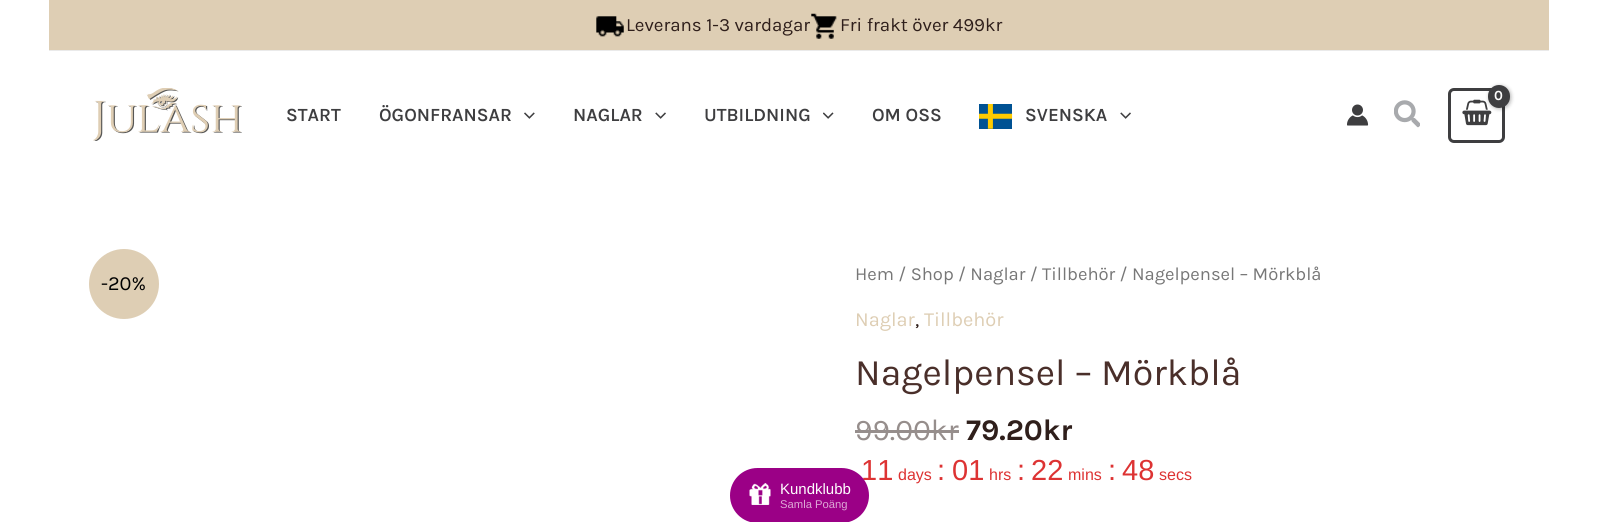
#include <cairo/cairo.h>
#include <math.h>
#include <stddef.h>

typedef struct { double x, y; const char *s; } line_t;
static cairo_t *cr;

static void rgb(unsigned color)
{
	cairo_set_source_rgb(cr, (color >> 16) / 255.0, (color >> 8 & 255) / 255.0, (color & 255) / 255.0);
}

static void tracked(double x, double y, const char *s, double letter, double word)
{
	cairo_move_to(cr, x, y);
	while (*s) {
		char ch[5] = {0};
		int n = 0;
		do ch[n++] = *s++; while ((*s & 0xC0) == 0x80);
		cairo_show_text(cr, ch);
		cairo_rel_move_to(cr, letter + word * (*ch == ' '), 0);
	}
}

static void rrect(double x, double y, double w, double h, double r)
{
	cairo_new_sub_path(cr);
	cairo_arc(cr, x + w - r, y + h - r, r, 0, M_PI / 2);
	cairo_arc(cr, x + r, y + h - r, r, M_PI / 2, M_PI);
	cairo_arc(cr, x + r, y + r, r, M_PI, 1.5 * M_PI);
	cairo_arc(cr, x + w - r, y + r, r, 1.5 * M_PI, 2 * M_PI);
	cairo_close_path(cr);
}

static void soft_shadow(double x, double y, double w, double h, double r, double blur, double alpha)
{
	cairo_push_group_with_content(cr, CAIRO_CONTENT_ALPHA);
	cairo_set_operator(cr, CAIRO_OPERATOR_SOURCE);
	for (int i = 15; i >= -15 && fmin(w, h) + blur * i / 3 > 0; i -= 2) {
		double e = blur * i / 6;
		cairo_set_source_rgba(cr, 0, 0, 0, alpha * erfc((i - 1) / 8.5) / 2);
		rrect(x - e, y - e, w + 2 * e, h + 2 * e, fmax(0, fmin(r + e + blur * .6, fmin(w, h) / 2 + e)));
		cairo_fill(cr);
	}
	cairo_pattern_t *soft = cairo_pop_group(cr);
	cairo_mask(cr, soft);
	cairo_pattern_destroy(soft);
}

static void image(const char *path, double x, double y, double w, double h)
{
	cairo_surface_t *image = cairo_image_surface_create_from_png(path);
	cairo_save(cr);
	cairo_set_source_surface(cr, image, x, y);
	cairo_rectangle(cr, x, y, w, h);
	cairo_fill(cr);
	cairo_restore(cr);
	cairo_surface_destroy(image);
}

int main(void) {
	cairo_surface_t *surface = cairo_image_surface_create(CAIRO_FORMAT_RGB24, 1597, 522);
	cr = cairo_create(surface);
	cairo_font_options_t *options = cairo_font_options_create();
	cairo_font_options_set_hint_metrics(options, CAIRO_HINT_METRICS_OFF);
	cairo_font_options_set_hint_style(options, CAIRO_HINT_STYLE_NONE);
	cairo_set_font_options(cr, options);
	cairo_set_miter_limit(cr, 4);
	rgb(0xffffff);
	cairo_paint(cr);
	rgb(0xdeceb4);
	cairo_rectangle(cr, 49, 0, 1500, 50);
	cairo_fill(cr);
	rgb(0xeaeaea);
	cairo_rectangle(cr, 49, 50, 1500, 1);
	cairo_fill(cr);
	image("img/1.png", 596, 16, 28, 21);
	image("img/2.png", 811, 13, 26, 26);
	rrect(1449.5, 89.5, 54, 52, 4.5);
	rgb(0x3e3e40);
	cairo_set_line_width(cr, 3);
	cairo_stroke(cr);
	image("img/3.png", 1462, 99, 30, 27);
	rgb(0x000000);
	soft_shadow(1489, 86, 22, 23, 11, 2, 0.3);
	rgb(0x3e3e40);
	rrect(1488, 85, 22, 23, 11);
	cairo_fill(cr);
	image("img/4.png", 1347, 104, 22, 22);
	image("img/5.png", 1394, 100, 26, 28);
	image("img/6.png", 93, 88, 149, 53);
	image("img/7.png", 524, 112, 11, 7);
	image("img/8.png", 655, 112, 11, 7);
	image("img/9.png", 823, 112, 11, 7);
	image("img/10.png", 979, 104, 34, 25);
	image("img/8.png", 1120, 112, 11, 7);
	rgb(0xdeceb4);
	cairo_arc(cr, 124, 284, 35, 0, 2 * M_PI);
	cairo_fill(cr);
	rgb(0x968e8c);
	cairo_rectangle(cr, 855, 430, 104, 3);
	cairo_fill(cr);
	cairo_select_font_face(cr, "Karla", CAIRO_FONT_SLANT_NORMAL, CAIRO_FONT_WEIGHT_NORMAL);
	cairo_set_font_size(cr, 18.75);
	rgb(0x2f1f1b);
	cairo_move_to(cr, 626, 31);
	cairo_show_text(cr, "Leverans 1-3 vardagar");
	cairo_move_to(cr, 840, 31);
	cairo_show_text(cr, "Fri frakt över 499kr");
	cairo_select_font_face(cr, "Karla", CAIRO_FONT_SLANT_NORMAL, CAIRO_FONT_WEIGHT_BOLD);
	cairo_set_font_size(cr, 14);
	rgb(0xfdfdfd);
	tracked(1494, 100, "0", -1, 0);
	cairo_select_font_face(cr, "Karla SemiBold", CAIRO_FONT_SLANT_NORMAL, CAIRO_FONT_WEIGHT_NORMAL);
	cairo_set_font_size(cr, 18.75);
	rgb(0x3e3e40);
	{
		static const line_t items[] = {
			{286, 121, "START"},
			{379, 121, "ÖGONFRANSAR"},
			{573, 121, "NAGLAR"},
			{704, 121, "UTBILDNING"},
			{872, 121, "OM OSS"},
			{1025, 121, "SVENSKA"},
		};
		for (size_t i = 0; i < sizeof items / sizeof *items; i++) {
			cairo_move_to(cr, items[i].x, items[i].y);
			cairo_show_text(cr, items[i].s);
		}
	}
	cairo_select_font_face(cr, "Karla", CAIRO_FONT_SLANT_NORMAL, CAIRO_FONT_WEIGHT_NORMAL);
	cairo_set_font_size(cr, 20);
	rgb(0x000000);
	cairo_move_to(cr, 101, 290);
	cairo_show_text(cr, "-20%");
	cairo_set_font_size(cr, 18.4);
	rgb(0x777777);
	cairo_move_to(cr, 855, 280);
	cairo_show_text(cr, "Hem / Shop / Naglar / Tillbehör / Nagelpensel – Mörkblå");
	cairo_set_font_size(cr, 20);
	rgb(0xdeceb4);
	cairo_move_to(cr, 855, 326);
	cairo_show_text(cr, "Naglar");
	rgb(0x2f1f1b);
	cairo_move_to(cr, 915, 326);
	cairo_show_text(cr, ",");
	rgb(0xdeceb4);
	cairo_move_to(cr, 924, 326);
	cairo_show_text(cr, "Tillbehör");
	cairo_set_font_size(cr, 37.5);
	rgb(0x4a2f2a);
	cairo_move_to(cr, 855, 385);
	cairo_show_text(cr, "Nagelpensel – Mörkblå");
	cairo_set_font_size(cr, 30);
	rgb(0x968e8c);
	cairo_move_to(cr, 855, 440);
	cairo_show_text(cr, "99.00kr");
	cairo_select_font_face(cr, "Karla", CAIRO_FONT_SLANT_NORMAL, CAIRO_FONT_WEIGHT_BOLD);
	rgb(0x2f1f1b);
	cairo_move_to(cr, 966, 440);
	cairo_show_text(cr, "79.20kr");
	cairo_select_font_face(cr, "Liberation Sans", CAIRO_FONT_SLANT_NORMAL, CAIRO_FONT_WEIGHT_NORMAL);
	cairo_set_font_size(cr, 29);
	rgb(0xdd3333);
	cairo_move_to(cr, 861, 480);
	cairo_show_text(cr, "11");
	cairo_set_font_size(cr, 16);
	cairo_move_to(cr, 898, 480);
	cairo_show_text(cr, "days");
	cairo_set_font_size(cr, 29);
	cairo_move_to(cr, 937, 480);
	cairo_show_text(cr, ":");
	cairo_move_to(cr, 952, 480);
	cairo_show_text(cr, "01");
	cairo_set_font_size(cr, 16);
	cairo_move_to(cr, 989, 480);
	cairo_show_text(cr, "hrs");
	cairo_set_font_size(cr, 29);
	cairo_move_to(cr, 1017, 480);
	cairo_show_text(cr, ":");
	cairo_move_to(cr, 1031, 480);
	cairo_show_text(cr, "22");
	cairo_set_font_size(cr, 16);
	cairo_move_to(cr, 1068, 480);
	cairo_show_text(cr, "mins");
	cairo_set_font_size(cr, 29);
	cairo_move_to(cr, 1108, 480);
	cairo_show_text(cr, ":");
	cairo_move_to(cr, 1122, 480);
	cairo_show_text(cr, "48");
	cairo_set_font_size(cr, 16);
	cairo_move_to(cr, 1159, 480);
	cairo_show_text(cr, "secs");
	rgb(0x9b0086);
	rrect(730, 468, 139, 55, 27.5);
	cairo_fill(cr);
	image("img/11.png", 749, 483, 22, 22);
	cairo_set_font_size(cr, 15);
	rgb(0xfdfdfd);
	cairo_move_to(cr, 780, 494);
	cairo_show_text(cr, "Kundklubb");
	cairo_set_font_size(cr, 11.25);
	rgb(0xdda8d6);
	cairo_move_to(cr, 780, 508);
	cairo_show_text(cr, "Samla Poäng");
	cairo_surface_write_to_png(surface, "page.png");
	cairo_font_options_destroy(options);
	cairo_destroy(cr);
	cairo_surface_destroy(surface);
	return 0;
}
